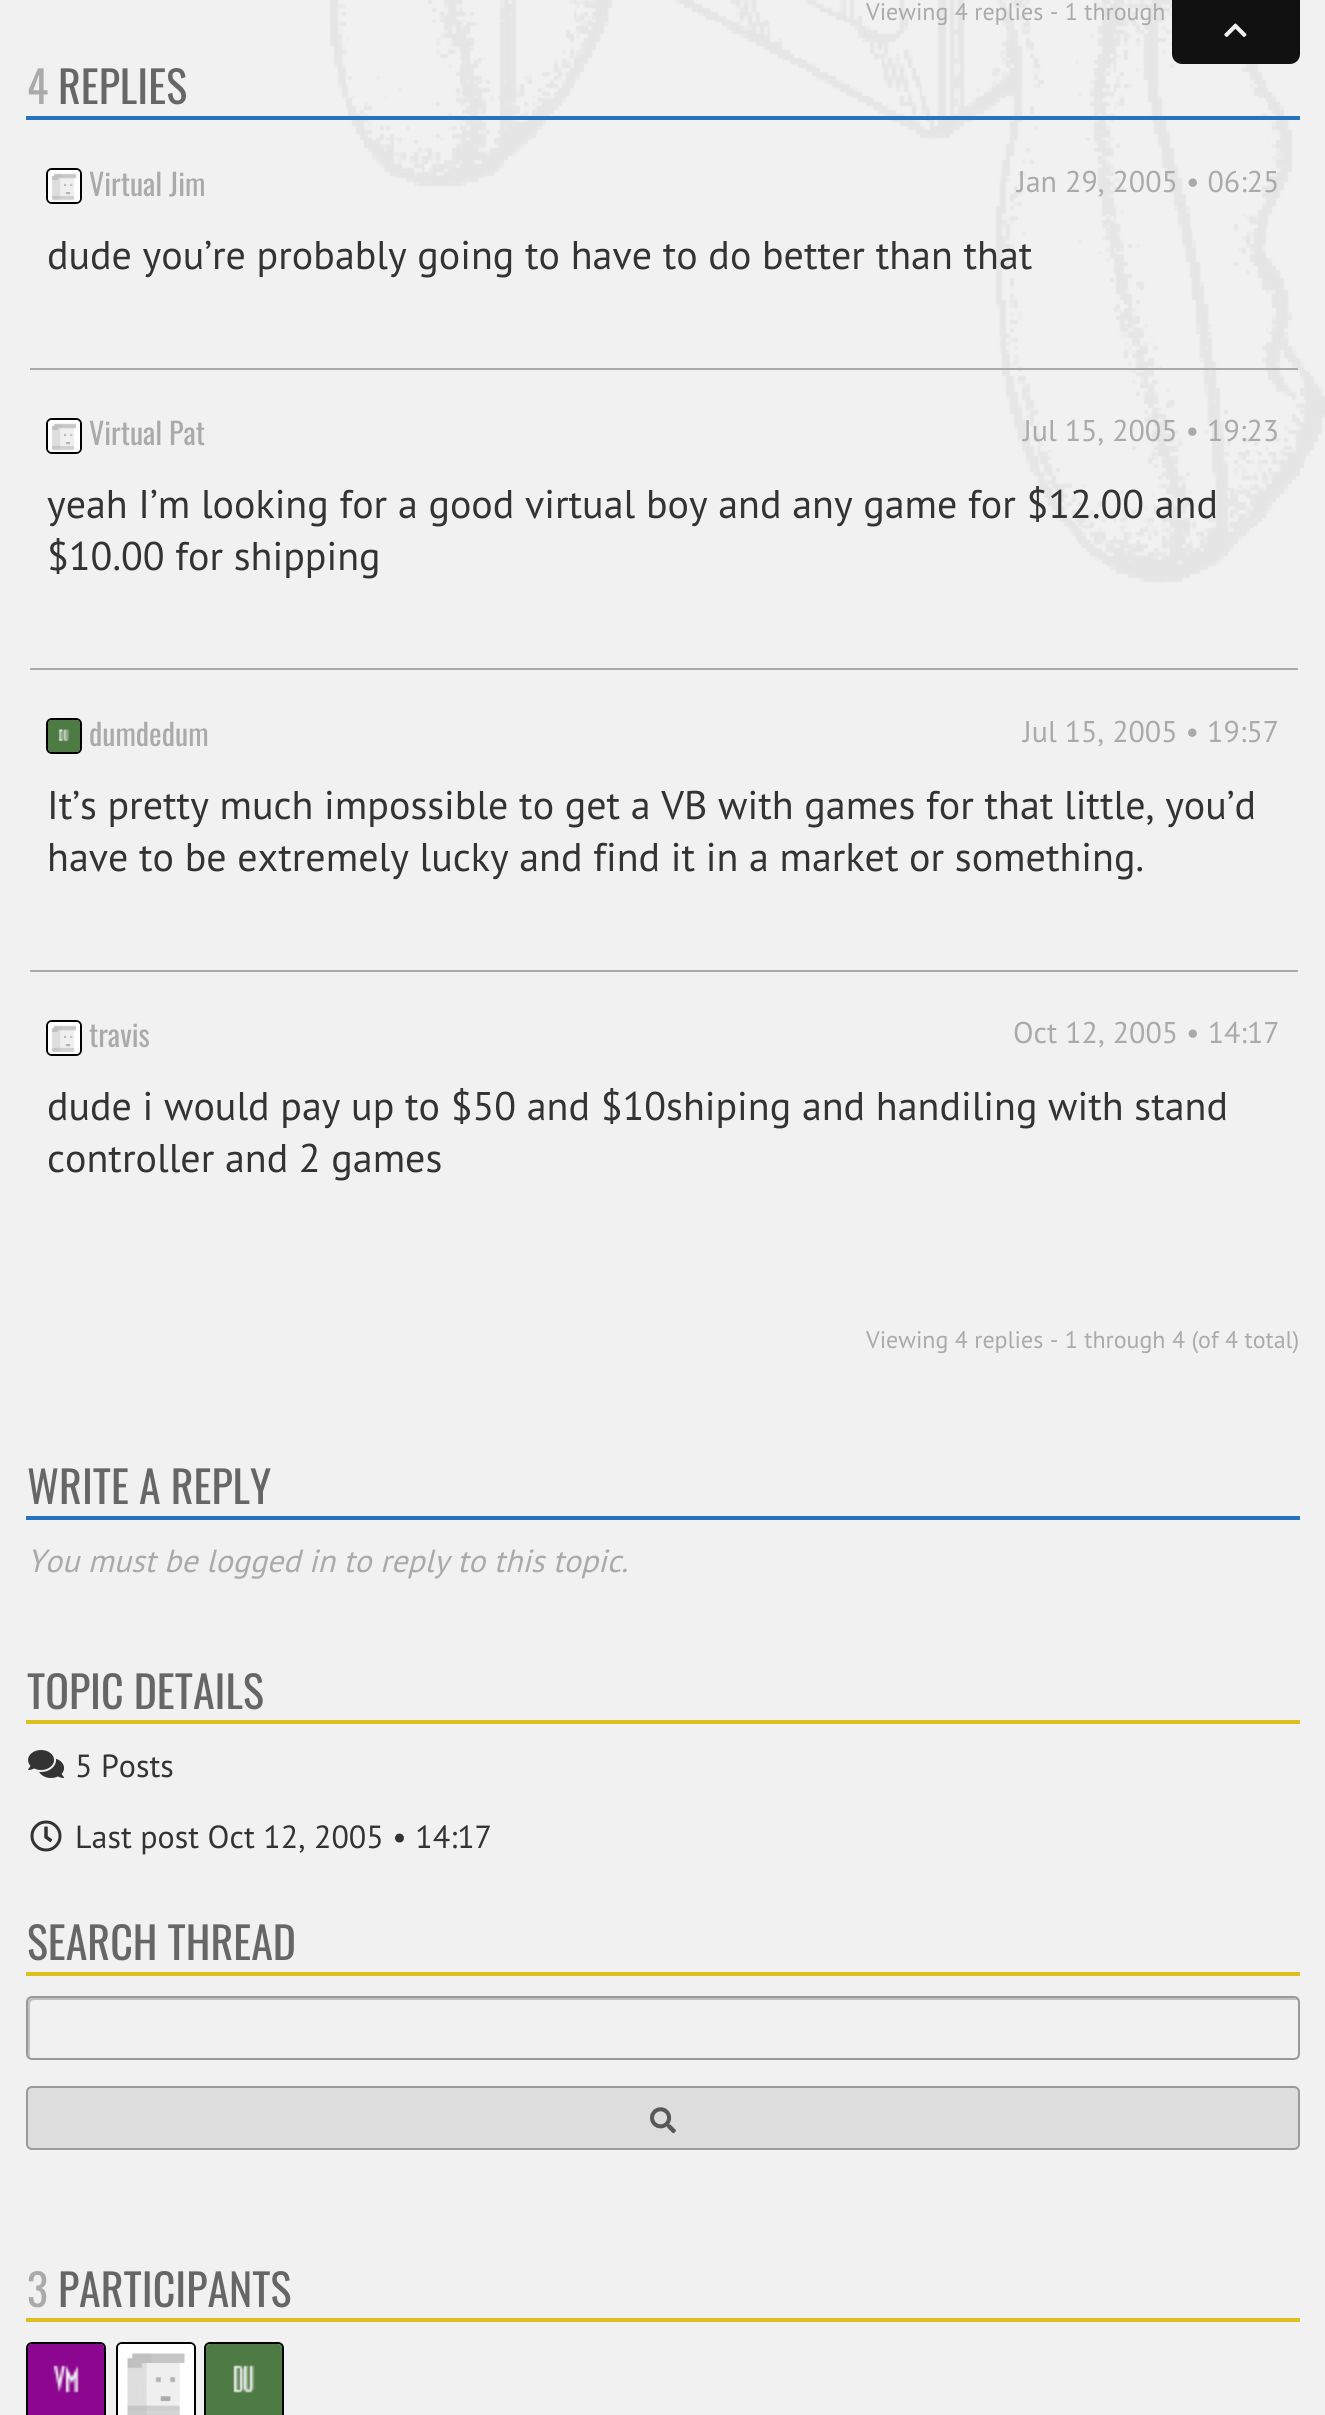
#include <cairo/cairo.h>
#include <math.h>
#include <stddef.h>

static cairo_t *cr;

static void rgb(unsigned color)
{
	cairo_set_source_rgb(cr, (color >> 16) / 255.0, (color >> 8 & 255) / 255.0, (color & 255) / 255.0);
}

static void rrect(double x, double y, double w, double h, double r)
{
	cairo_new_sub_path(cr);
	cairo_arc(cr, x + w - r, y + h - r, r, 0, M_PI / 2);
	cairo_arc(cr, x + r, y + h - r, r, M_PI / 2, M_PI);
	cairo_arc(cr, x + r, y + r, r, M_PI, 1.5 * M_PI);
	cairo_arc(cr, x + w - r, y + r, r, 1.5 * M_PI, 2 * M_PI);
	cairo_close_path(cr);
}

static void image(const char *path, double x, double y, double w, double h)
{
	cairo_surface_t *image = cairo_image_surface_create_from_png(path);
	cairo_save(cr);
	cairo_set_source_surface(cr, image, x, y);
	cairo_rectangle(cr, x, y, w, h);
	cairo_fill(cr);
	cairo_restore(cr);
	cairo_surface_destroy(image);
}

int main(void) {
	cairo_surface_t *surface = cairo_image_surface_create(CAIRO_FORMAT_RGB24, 1325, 2415);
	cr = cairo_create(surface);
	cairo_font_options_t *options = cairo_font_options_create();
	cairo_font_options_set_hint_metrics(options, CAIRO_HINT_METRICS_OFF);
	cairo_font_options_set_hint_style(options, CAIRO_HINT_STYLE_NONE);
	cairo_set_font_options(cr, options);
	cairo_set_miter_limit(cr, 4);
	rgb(0xf1f1f1);
	cairo_paint(cr);
	image("img/2.png", 330, 0, 995, 583);
	rgb(0x111111);
	cairo_new_path(cr);
	cairo_move_to(cr, 1172, 0);
	cairo_line_to(cr, 1300, 0);
	cairo_line_to(cr, 1300, 54);
	cairo_curve_to(cr, 1300, 59.5, 1295.5, 64, 1290, 64);
	cairo_line_to(cr, 1182, 64);
	cairo_curve_to(cr, 1176.5, 64, 1172, 59.5, 1172, 54);
	cairo_close_path(cr);
	cairo_fill(cr);
	image("img/1.png", 1224, 23, 23, 14);
	rgb(0x2873bf);
	cairo_rectangle(cr, 26, 116, 1274, 4);
	cairo_fill(cr);
	rgb(0xaaaaaa);
	cairo_rectangle(cr, 30, 368, 1268, 2);
	cairo_fill(cr);
	rrect(47, 169, 34, 34, 5);
	rgb(0x000000);
	cairo_stroke(cr);
	image("img/3.png", 48, 170, 32, 32);
	rgb(0xaaaaaa);
	cairo_rectangle(cr, 30, 668, 1268, 2);
	cairo_fill(cr);
	rrect(47, 419, 34, 34, 5);
	rgb(0x000000);
	cairo_stroke(cr);
	image("img/3.png", 48, 420, 32, 32);
	rgb(0xaaaaaa);
	cairo_rectangle(cr, 30, 970, 1268, 2);
	cairo_fill(cr);
	rrect(47, 719, 34, 34, 5);
	rgb(0x000000);
	cairo_stroke(cr);
	image("img/4.png", 48, 720, 32, 32);
	rrect(47, 1021, 34, 34, 5);
	cairo_stroke(cr);
	image("img/3.png", 48, 1022, 32, 32);
	rgb(0x2873bf);
	cairo_rectangle(cr, 26, 1516, 1274, 4);
	cairo_fill(cr);
	rgb(0xddc01c);
	cairo_rectangle(cr, 26, 1720, 1274, 4);
	cairo_fill(cr);
	image("img/5.png", 28, 1750, 36, 28);
	image("img/6.png", 30, 1820, 32, 32);
	cairo_rectangle(cr, 26, 1972, 1274, 4);
	cairo_fill(cr);
	rgb(0xc1c1c1);
	cairo_new_path(cr);
	cairo_move_to(cr, 34, 2000);
	cairo_line_to(cr, 1296, 2000);
	cairo_line_to(cr, 1298, 2000);
	cairo_curve_to(cr, 1297, 1999, 1296, 1998, 1294, 1998);
	cairo_line_to(cr, 32, 1998);
	cairo_curve_to(cr, 30, 1998, 28, 2000, 28, 2002);
	cairo_line_to(cr, 28, 2054);
	cairo_curve_to(cr, 28, 2056, 29, 2057, 30, 2058);
	cairo_line_to(cr, 30, 2056);
	cairo_line_to(cr, 30, 2004);
	cairo_curve_to(cr, 30, 2002, 32, 2000, 34, 2000);
	cairo_close_path(cr);
	cairo_fill(cr);
	rrect(27, 1997, 1272, 62, 5);
	rgb(0x999999);
	cairo_stroke(cr);
	rgb(0xdddddd);
	rrect(26, 2086, 1274, 64, 6);
	cairo_fill(cr);
	rrect(27, 2087, 1272, 62, 5);
	cairo_set_source_rgba(cr, 0, 0, 0, 0.3);
	cairo_stroke(cr);
	image("img/7.png", 650, 2107, 26, 27);
	rgb(0xddc01c);
	cairo_rectangle(cr, 26, 2318, 1274, 4);
	cairo_fill(cr);
	rrect(27, 2343, 78, 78, 5);
	rgb(0x000000);
	cairo_stroke(cr);
	rrect(117, 2343, 78, 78, 5);
	cairo_stroke(cr);
	rrect(205, 2343, 78, 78, 5);
	cairo_stroke(cr);
	image("img/8.png", 28, 2344, 76, 71);
	image("img/9.png", 118, 2344, 76, 71);
	image("img/10.png", 206, 2344, 76, 71);
	cairo_select_font_face(cr, "PT Sans", CAIRO_FONT_SLANT_NORMAL, CAIRO_FONT_WEIGHT_NORMAL);
	cairo_set_font_size(cr, 24);
	rgb(0xaaaaaa);
	cairo_move_to(cr, 866, 20);
	cairo_show_text(cr, "Viewing 4 replies - 1 through");
	cairo_select_font_face(cr, "Oswald", CAIRO_FONT_SLANT_NORMAL, CAIRO_FONT_WEIGHT_NORMAL);
	cairo_set_font_size(cr, 44);
	cairo_move_to(cr, 27, 104);
	cairo_show_text(cr, "4");
	rgb(0x666666);
	cairo_move_to(cr, 58, 104);
	cairo_show_text(cr, "REPLIES");
	cairo_set_font_size(cr, 30);
	rgb(0xaaaaaa);
	cairo_move_to(cr, 89, 196);
	cairo_show_text(cr, "Virtual Jim");
	cairo_select_font_face(cr, "PT Sans", CAIRO_FONT_SLANT_NORMAL, CAIRO_FONT_WEIGHT_NORMAL);
	cairo_move_to(cr, 1017, 192);
	cairo_show_text(cr, "Jan 29, 2005 • 06:25");
	cairo_set_font_size(cr, 40);
	rgb(0x333333);
	cairo_move_to(cr, 47, 269);
	cairo_show_text(cr, "dude you’re probably going to have to do better than that");
	cairo_select_font_face(cr, "Oswald", CAIRO_FONT_SLANT_NORMAL, CAIRO_FONT_WEIGHT_NORMAL);
	cairo_set_font_size(cr, 30);
	rgb(0xaaaaaa);
	cairo_move_to(cr, 89, 445);
	cairo_show_text(cr, "Virtual Pat");
	cairo_select_font_face(cr, "PT Sans", CAIRO_FONT_SLANT_NORMAL, CAIRO_FONT_WEIGHT_NORMAL);
	cairo_move_to(cr, 1023, 441);
	cairo_show_text(cr, "Jul 15, 2005 • 19:23");
	cairo_set_font_size(cr, 40);
	rgb(0x333333);
	cairo_move_to(cr, 47, 518);
	cairo_show_text(cr, "yeah I’m looking for a good virtual boy and any game for $12.00 and");
	cairo_move_to(cr, 47, 570);
	cairo_show_text(cr, "$10.00 for shipping");
	cairo_select_font_face(cr, "Oswald", CAIRO_FONT_SLANT_NORMAL, CAIRO_FONT_WEIGHT_NORMAL);
	cairo_set_font_size(cr, 30);
	rgb(0xaaaaaa);
	cairo_move_to(cr, 89, 746);
	cairo_show_text(cr, "dumdedum");
	cairo_select_font_face(cr, "PT Sans", CAIRO_FONT_SLANT_NORMAL, CAIRO_FONT_WEIGHT_NORMAL);
	cairo_move_to(cr, 1023, 742);
	cairo_show_text(cr, "Jul 15, 2005 • 19:57");
	cairo_set_font_size(cr, 40);
	rgb(0x333333);
	cairo_move_to(cr, 47, 819);
	cairo_show_text(cr, "It’s pretty much impossible to get a VB with games for that little, you’d");
	cairo_move_to(cr, 47, 871);
	cairo_show_text(cr, "have to be extremely lucky and find it in a market or something.");
	cairo_select_font_face(cr, "Oswald", CAIRO_FONT_SLANT_NORMAL, CAIRO_FONT_WEIGHT_NORMAL);
	cairo_set_font_size(cr, 30);
	rgb(0xaaaaaa);
	cairo_move_to(cr, 89, 1047);
	cairo_show_text(cr, "travis");
	cairo_select_font_face(cr, "PT Sans", CAIRO_FONT_SLANT_NORMAL, CAIRO_FONT_WEIGHT_NORMAL);
	cairo_move_to(cr, 1013, 1043);
	cairo_show_text(cr, "Oct 12, 2005 • 14:17");
	cairo_set_font_size(cr, 40);
	rgb(0x333333);
	cairo_move_to(cr, 47, 1120);
	cairo_show_text(cr, "dude i would pay up to $50 and $10shiping and handiling with stand");
	cairo_move_to(cr, 47, 1172);
	cairo_show_text(cr, "controller and 2 games");
	cairo_set_font_size(cr, 24);
	rgb(0xaaaaaa);
	cairo_move_to(cr, 866, 1348);
	cairo_show_text(cr, "Viewing 4 replies - 1 through 4 (of 4 total)");
	cairo_select_font_face(cr, "Oswald", CAIRO_FONT_SLANT_NORMAL, CAIRO_FONT_WEIGHT_NORMAL);
	cairo_set_font_size(cr, 44);
	rgb(0x666666);
	cairo_move_to(cr, 27, 1504);
	cairo_show_text(cr, "WRITE A REPLY");
	cairo_select_font_face(cr, "PT Sans", CAIRO_FONT_SLANT_ITALIC, CAIRO_FONT_WEIGHT_NORMAL);
	cairo_set_font_size(cr, 32);
	rgb(0xaaaaaa);
	cairo_move_to(cr, 27, 1572);
	cairo_show_text(cr, "You must be logged in to reply to this topic.");
	cairo_select_font_face(cr, "Oswald", CAIRO_FONT_SLANT_NORMAL, CAIRO_FONT_WEIGHT_NORMAL);
	cairo_set_font_size(cr, 44);
	rgb(0x666666);
	cairo_move_to(cr, 27, 1709);
	cairo_show_text(cr, "TOPIC DETAILS");
	cairo_select_font_face(cr, "PT Sans", CAIRO_FONT_SLANT_NORMAL, CAIRO_FONT_WEIGHT_NORMAL);
	cairo_set_font_size(cr, 32);
	rgb(0x333333);
	cairo_move_to(cr, 75, 1777);
	cairo_show_text(cr, "5 Posts");
	cairo_move_to(cr, 75, 1848);
	cairo_show_text(cr, "Last post Oct 12, 2005 • 14:17");
	cairo_select_font_face(cr, "Oswald", CAIRO_FONT_SLANT_NORMAL, CAIRO_FONT_WEIGHT_NORMAL);
	cairo_set_font_size(cr, 44);
	rgb(0x666666);
	cairo_move_to(cr, 27, 1960);
	cairo_show_text(cr, "SEARCH THREAD");
	rgb(0xaaaaaa);
	cairo_move_to(cr, 27, 2307);
	cairo_show_text(cr, "3");
	rgb(0x666666);
	cairo_move_to(cr, 58, 2307);
	cairo_show_text(cr, "PARTICIPANTS");
	cairo_surface_write_to_png(surface, "page.png");
	cairo_font_options_destroy(options);
	cairo_destroy(cr);
	cairo_surface_destroy(surface);
	return 0;
}
